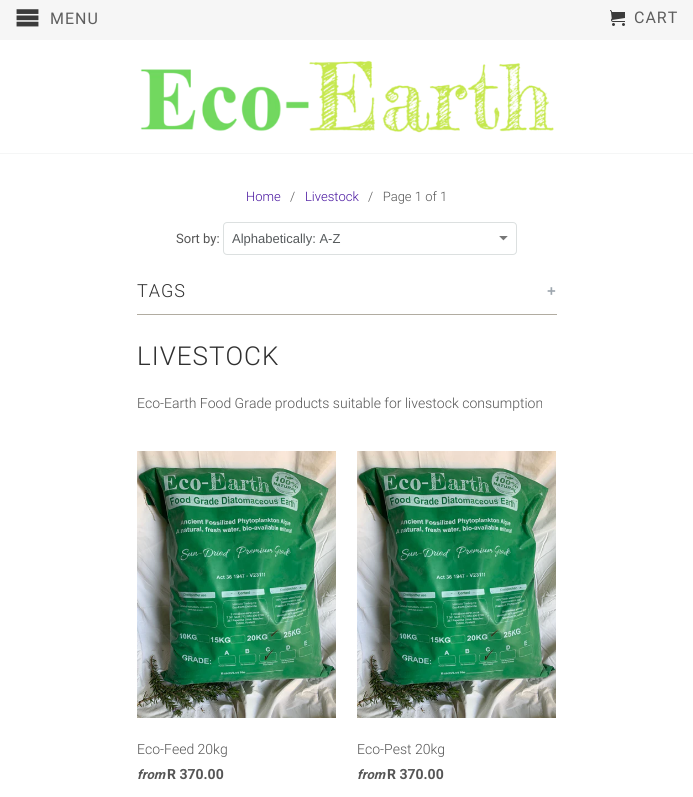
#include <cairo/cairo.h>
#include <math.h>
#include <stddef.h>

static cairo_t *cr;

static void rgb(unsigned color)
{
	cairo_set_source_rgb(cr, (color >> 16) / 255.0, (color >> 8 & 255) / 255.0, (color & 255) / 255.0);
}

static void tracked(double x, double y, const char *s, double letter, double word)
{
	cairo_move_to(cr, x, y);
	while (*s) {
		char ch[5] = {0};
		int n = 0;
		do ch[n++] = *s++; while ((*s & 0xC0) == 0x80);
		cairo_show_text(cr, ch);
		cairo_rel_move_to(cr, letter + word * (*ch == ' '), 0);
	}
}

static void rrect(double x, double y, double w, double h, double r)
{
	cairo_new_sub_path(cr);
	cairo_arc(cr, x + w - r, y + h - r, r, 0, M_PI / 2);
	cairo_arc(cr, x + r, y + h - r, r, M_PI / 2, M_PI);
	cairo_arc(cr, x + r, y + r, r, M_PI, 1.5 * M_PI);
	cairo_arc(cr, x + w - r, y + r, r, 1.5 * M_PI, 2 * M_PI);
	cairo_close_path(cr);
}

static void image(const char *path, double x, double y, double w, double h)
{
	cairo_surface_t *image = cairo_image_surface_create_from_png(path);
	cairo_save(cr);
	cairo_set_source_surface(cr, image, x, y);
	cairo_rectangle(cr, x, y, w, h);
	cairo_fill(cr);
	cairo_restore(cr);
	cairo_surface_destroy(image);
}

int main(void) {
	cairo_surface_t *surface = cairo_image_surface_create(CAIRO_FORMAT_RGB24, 693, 797);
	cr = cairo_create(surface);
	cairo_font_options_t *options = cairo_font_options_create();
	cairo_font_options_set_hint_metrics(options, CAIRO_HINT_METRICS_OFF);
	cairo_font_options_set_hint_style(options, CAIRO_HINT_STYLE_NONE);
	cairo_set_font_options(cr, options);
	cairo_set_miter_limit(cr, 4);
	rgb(0xffffff);
	cairo_paint(cr);
	rgb(0xf6f6f6);
	cairo_rectangle(cr, 0, 0, 693, 40);
	cairo_fill(cr);
	image("img/1.png", 16, 9, 23, 18);
	image("img/2.png", 610, 10, 15, 16);
	rgb(0xf5f6f6);
	cairo_rectangle(cr, 0, 153, 693, 1);
	cairo_fill(cr);
	image("img/3.png", 140, 60, 414, 73);
	image("img/4.png", 499, 236, 9, 5);
	rrect(223.5, 222.5, 293, 32, 3.5);
	rgb(0xdce0e0);
	cairo_set_line_width(cr, 1);
	cairo_stroke(cr);
	rgb(0xb1aca1);
	cairo_rectangle(cr, 137, 314, 420, 1);
	cairo_fill(cr);
	image("img/5.png", 137, 451, 199, 267);
	image("img/5.png", 357, 451, 199, 267);
	cairo_select_font_face(cr, "Roboto", CAIRO_FONT_SLANT_NORMAL, CAIRO_FONT_WEIGHT_NORMAL);
	cairo_set_font_size(cr, 16);
	rgb(0x5e5e5e);
	tracked(50, 24, "MENU", 1, 0);
	tracked(634, 23, "CART", 1, 0);
	cairo_select_font_face(cr, "Roboto Light", CAIRO_FONT_SLANT_NORMAL, CAIRO_FONT_WEIGHT_NORMAL);
	cairo_set_font_size(cr, 13);
	rgb(0x47139f);
	cairo_move_to(cr, 246, 201);
	cairo_show_text(cr, "Home");
	rgb(0x555555);
	cairo_move_to(cr, 290, 201);
	cairo_show_text(cr, "/");
	rgb(0x47139f);
	cairo_move_to(cr, 305, 201);
	cairo_show_text(cr, "Livestock");
	rgb(0x555555);
	cairo_move_to(cr, 368, 201);
	cairo_show_text(cr, "/   Page 1 of 1");
	cairo_select_font_face(cr, "Roboto", CAIRO_FONT_SLANT_NORMAL, CAIRO_FONT_WEIGHT_NORMAL);
	cairo_move_to(cr, 176, 243);
	cairo_show_text(cr, "Sort by:");
	cairo_select_font_face(cr, "Liberation Sans", CAIRO_FONT_SLANT_NORMAL, CAIRO_FONT_WEIGHT_NORMAL);
	rgb(0x565a5c);
	cairo_move_to(cr, 232, 243);
	cairo_show_text(cr, "Alphabetically: A-Z");
	cairo_select_font_face(cr, "Roboto Light", CAIRO_FONT_SLANT_NORMAL, CAIRO_FONT_WEIGHT_NORMAL);
	cairo_set_font_size(cr, 18);
	rgb(0x303030);
	tracked(137, 297, "TAGS", 1, 0);
	cairo_select_font_face(cr, "Liberation Sans", CAIRO_FONT_SLANT_NORMAL, CAIRO_FONT_WEIGHT_BOLD);
	cairo_set_font_size(cr, 15);
	rgb(0x9da6ae);
	tracked(547, 296, "+", 1, 0);
	cairo_select_font_face(cr, "Roboto Light", CAIRO_FONT_SLANT_NORMAL, CAIRO_FONT_WEIGHT_NORMAL);
	cairo_set_font_size(cr, 26);
	rgb(0x303030);
	tracked(137, 365, "LIVESTOCK", 1, 0);
	cairo_set_font_size(cr, 14);
	rgb(0x555555);
	cairo_move_to(cr, 137, 408);
	cairo_show_text(cr, "Eco-Earth Food Grade products suitable for livestock consumption");
	cairo_move_to(cr, 137, 754);
	cairo_show_text(cr, "Eco-Feed 20kg");
	cairo_select_font_face(cr, "Roboto", CAIRO_FONT_SLANT_ITALIC, CAIRO_FONT_WEIGHT_BOLD);
	cairo_set_font_size(cr, 13);
	cairo_move_to(cr, 137, 779);
	cairo_show_text(cr, "from");
	cairo_select_font_face(cr, "Roboto", CAIRO_FONT_SLANT_NORMAL, CAIRO_FONT_WEIGHT_BOLD);
	cairo_set_font_size(cr, 14);
	cairo_move_to(cr, 167, 779);
	cairo_show_text(cr, "R 370.00");
	cairo_select_font_face(cr, "Roboto Light", CAIRO_FONT_SLANT_NORMAL, CAIRO_FONT_WEIGHT_NORMAL);
	cairo_move_to(cr, 357, 754);
	cairo_show_text(cr, "Eco-Pest 20kg");
	cairo_select_font_face(cr, "Roboto", CAIRO_FONT_SLANT_ITALIC, CAIRO_FONT_WEIGHT_BOLD);
	cairo_set_font_size(cr, 13);
	cairo_move_to(cr, 357, 779);
	cairo_show_text(cr, "from");
	cairo_select_font_face(cr, "Roboto", CAIRO_FONT_SLANT_NORMAL, CAIRO_FONT_WEIGHT_BOLD);
	cairo_set_font_size(cr, 14);
	cairo_move_to(cr, 387, 779);
	cairo_show_text(cr, "R 370.00");
	cairo_surface_write_to_png(surface, "page.png");
	cairo_font_options_destroy(options);
	cairo_destroy(cr);
	cairo_surface_destroy(surface);
	return 0;
}
